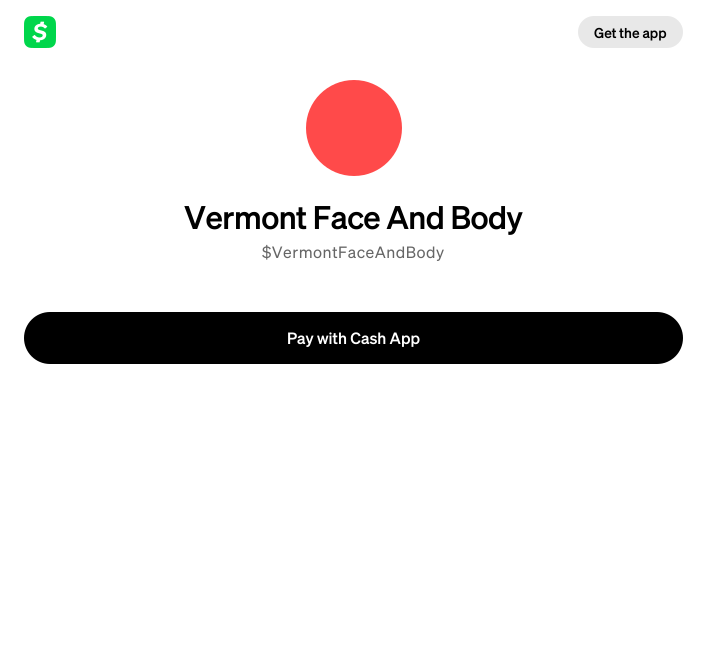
#include <cairo/cairo.h>
#include <math.h>
#include <stddef.h>

static cairo_t *cr;

static void rgb(unsigned color)
{
	cairo_set_source_rgb(cr, (color >> 16) / 255.0, (color >> 8 & 255) / 255.0, (color & 255) / 255.0);
}

static void tracked(double x, double y, const char *s, double letter, double word)
{
	cairo_move_to(cr, x, y);
	while (*s) {
		char ch[5] = {0};
		int n = 0;
		do ch[n++] = *s++; while ((*s & 0xC0) == 0x80);
		cairo_show_text(cr, ch);
		cairo_rel_move_to(cr, letter + word * (*ch == ' '), 0);
	}
}

static void rrect(double x, double y, double w, double h, double r)
{
	cairo_new_sub_path(cr);
	cairo_arc(cr, x + w - r, y + h - r, r, 0, M_PI / 2);
	cairo_arc(cr, x + r, y + h - r, r, M_PI / 2, M_PI);
	cairo_arc(cr, x + r, y + r, r, M_PI, 1.5 * M_PI);
	cairo_arc(cr, x + w - r, y + r, r, 1.5 * M_PI, 2 * M_PI);
	cairo_close_path(cr);
}

static void image(const char *path, double x, double y, double w, double h)
{
	cairo_surface_t *image = cairo_image_surface_create_from_png(path);
	cairo_save(cr);
	cairo_set_source_surface(cr, image, x, y);
	cairo_rectangle(cr, x, y, w, h);
	cairo_fill(cr);
	cairo_restore(cr);
	cairo_surface_destroy(image);
}

int main(void) {
	cairo_surface_t *surface = cairo_image_surface_create(CAIRO_FORMAT_RGB24, 707, 646);
	cr = cairo_create(surface);
	cairo_font_options_t *options = cairo_font_options_create();
	cairo_font_options_set_hint_metrics(options, CAIRO_HINT_METRICS_OFF);
	cairo_font_options_set_hint_style(options, CAIRO_HINT_STYLE_NONE);
	cairo_set_font_options(cr, options);
	cairo_set_miter_limit(cr, 4);
	rgb(0xffffff);
	cairo_paint(cr);
	image("img/1.png", 24, 16, 32, 32);
	rgb(0xe8e8e8);
	rrect(578, 16, 105, 32, 16);
	cairo_fill(cr);
	rgb(0xff4a4a);
	cairo_arc(cr, 354, 128, 48, 0, 2 * M_PI);
	cairo_fill(cr);
	rgb(0x000000);
	rrect(24, 312, 659, 52, 26);
	cairo_fill(cr);
	cairo_select_font_face(cr, "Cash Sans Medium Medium", CAIRO_FONT_SLANT_NORMAL, CAIRO_FONT_WEIGHT_NORMAL);
	cairo_set_font_size(cr, 14);
	cairo_move_to(cr, 594, 38);
	cairo_show_text(cr, "Get the app");
	cairo_set_font_size(cr, 32);
	tracked(184, 229, "Vermont Face And Body", -0.5, 0);
	cairo_select_font_face(cr, "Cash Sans", CAIRO_FONT_SLANT_NORMAL, CAIRO_FONT_WEIGHT_NORMAL);
	cairo_set_font_size(cr, 16);
	rgb(0x666666);
	tracked(262, 258, "$VermontFaceAndBody", 0.5, 0);
	cairo_select_font_face(cr, "Cash Sans Medium Medium", CAIRO_FONT_SLANT_NORMAL, CAIRO_FONT_WEIGHT_NORMAL);
	rgb(0xffffff);
	cairo_move_to(cr, 287, 344);
	cairo_show_text(cr, "Pay with Cash App");
	cairo_surface_write_to_png(surface, "page.png");
	cairo_font_options_destroy(options);
	cairo_destroy(cr);
	cairo_surface_destroy(surface);
	return 0;
}
